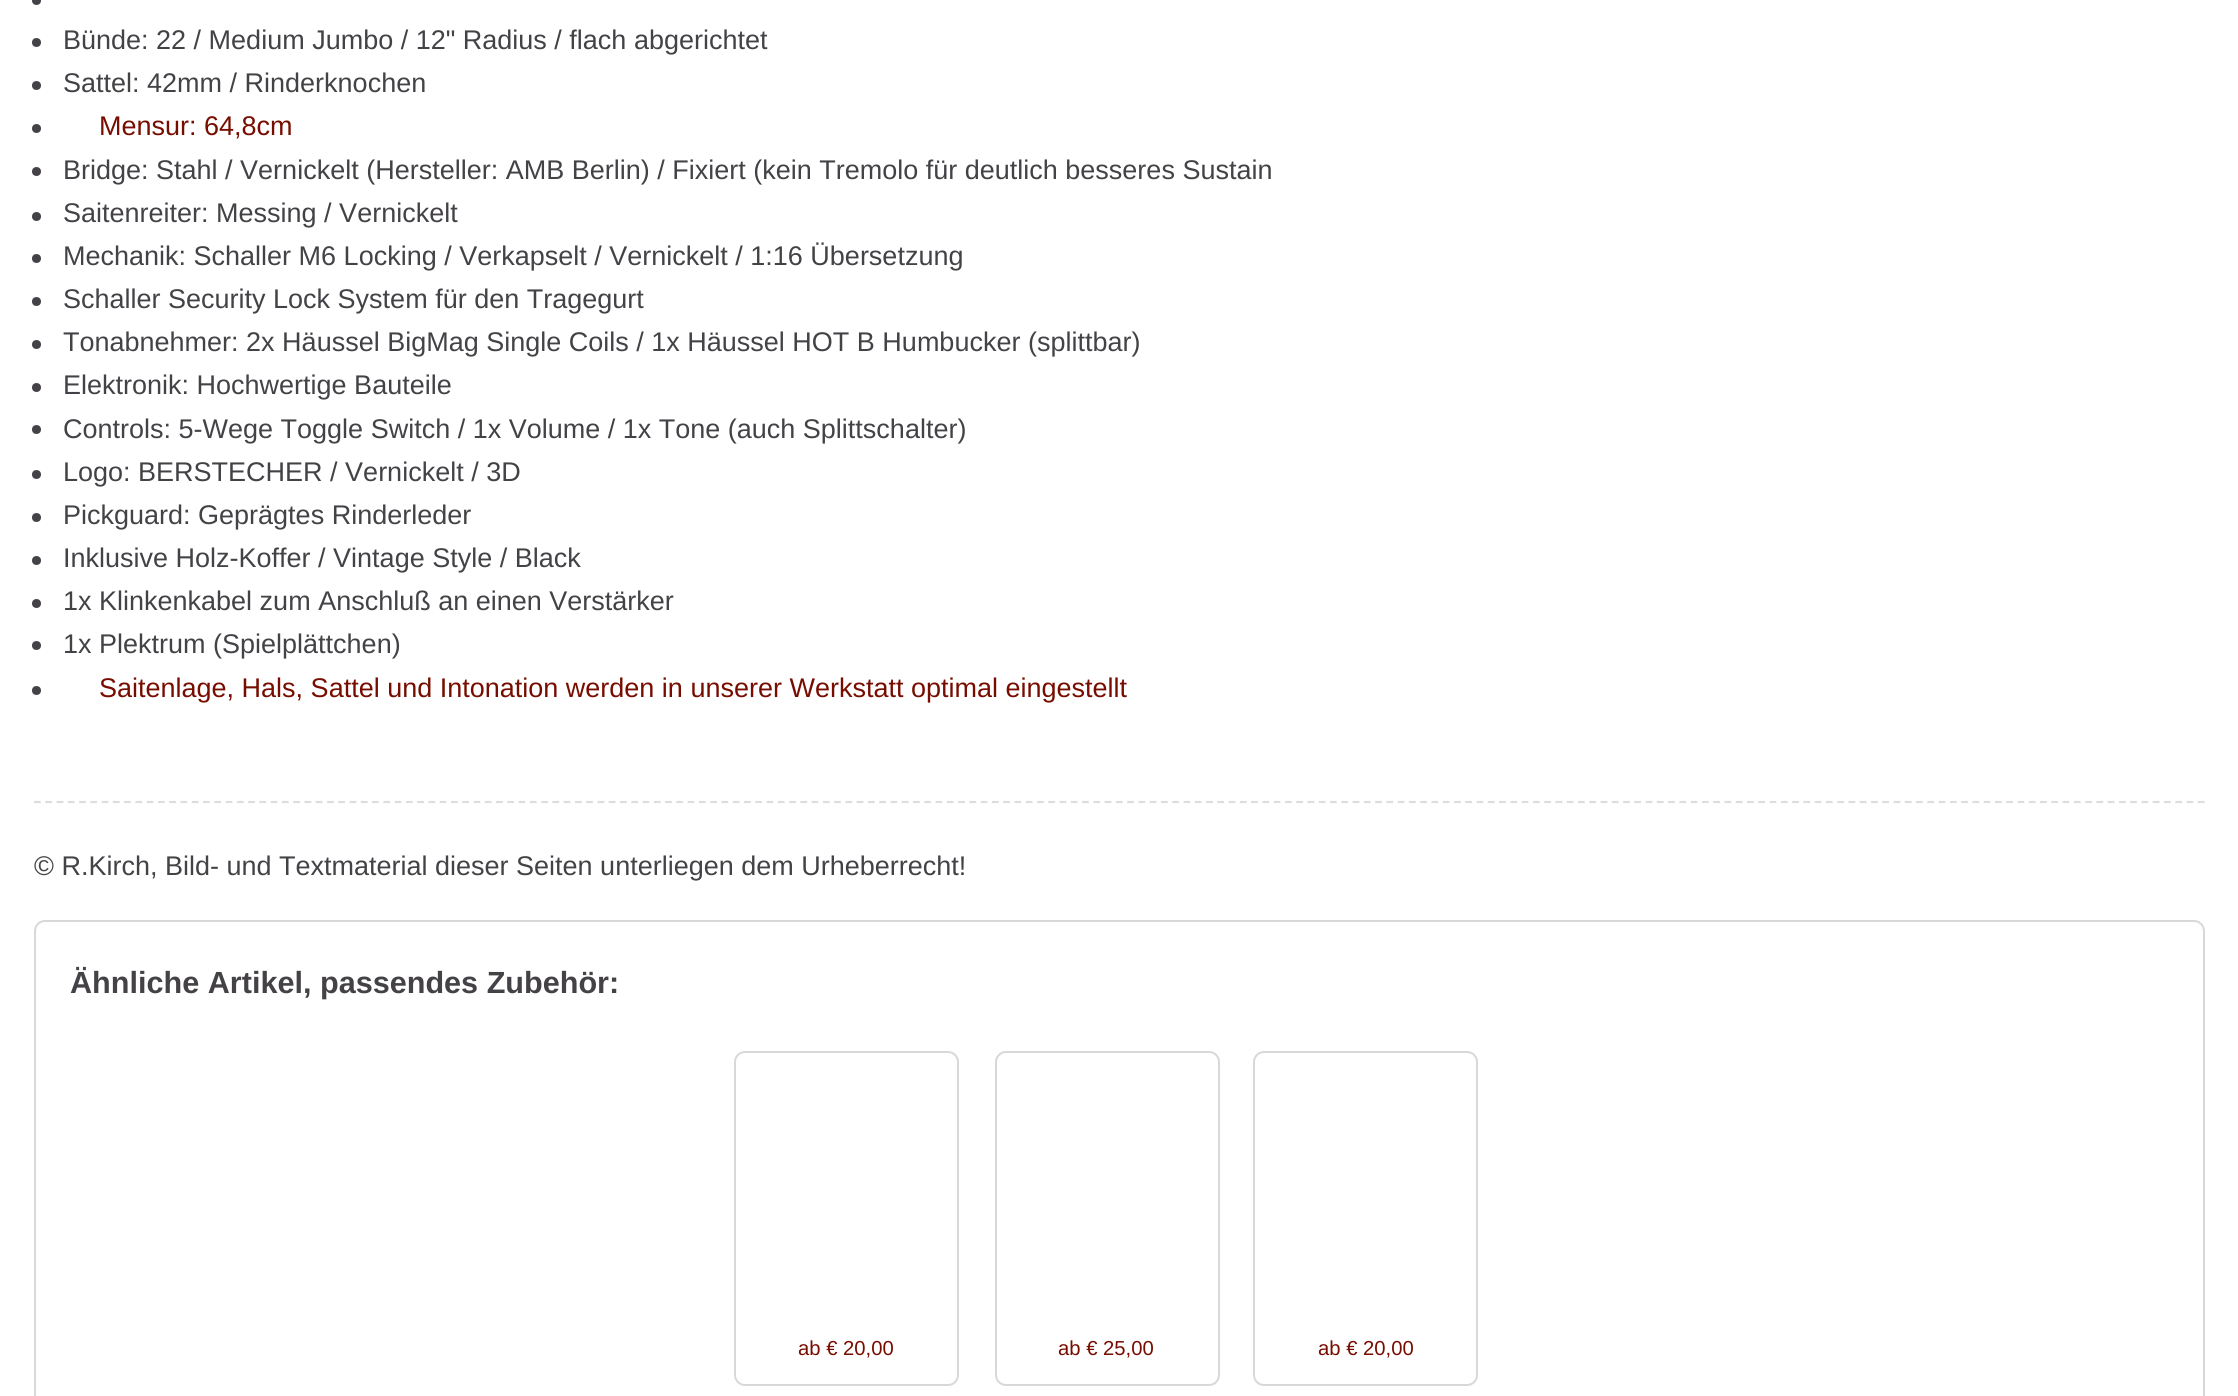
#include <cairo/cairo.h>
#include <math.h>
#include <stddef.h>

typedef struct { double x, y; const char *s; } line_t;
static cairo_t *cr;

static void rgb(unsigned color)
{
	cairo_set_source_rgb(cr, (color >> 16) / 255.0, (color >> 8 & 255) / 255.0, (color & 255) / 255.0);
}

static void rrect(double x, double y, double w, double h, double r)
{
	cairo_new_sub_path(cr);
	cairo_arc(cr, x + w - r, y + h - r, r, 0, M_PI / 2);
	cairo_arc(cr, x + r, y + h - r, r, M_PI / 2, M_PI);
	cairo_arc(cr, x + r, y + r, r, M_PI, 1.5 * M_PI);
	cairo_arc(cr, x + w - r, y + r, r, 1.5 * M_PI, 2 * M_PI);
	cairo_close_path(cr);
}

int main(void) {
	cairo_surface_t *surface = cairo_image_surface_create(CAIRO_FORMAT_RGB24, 2238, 1396);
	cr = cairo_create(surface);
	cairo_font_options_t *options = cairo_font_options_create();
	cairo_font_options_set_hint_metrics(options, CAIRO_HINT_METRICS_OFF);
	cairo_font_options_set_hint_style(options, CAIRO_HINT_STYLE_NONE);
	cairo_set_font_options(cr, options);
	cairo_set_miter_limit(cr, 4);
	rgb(0xffffff);
	cairo_paint(cr);
	rgb(0x444246);
	cairo_arc(cr, 36.5, 0.5, 4.5, 0, 2 * M_PI);
	cairo_fill(cr);
	cairo_arc(cr, 36.5, 42.5, 4.5, 0, 2 * M_PI);
	cairo_fill(cr);
	cairo_arc(cr, 36.5, 85.5, 4.5, 0, 2 * M_PI);
	cairo_fill(cr);
	cairo_arc(cr, 36.5, 128.5, 4.5, 0, 2 * M_PI);
	cairo_fill(cr);
	cairo_arc(cr, 36.5, 171.5, 4.5, 0, 2 * M_PI);
	cairo_fill(cr);
	cairo_arc(cr, 36.5, 216.5, 4.5, 0, 2 * M_PI);
	cairo_fill(cr);
	cairo_arc(cr, 36.5, 258.5, 4.5, 0, 2 * M_PI);
	cairo_fill(cr);
	cairo_arc(cr, 36.5, 301.5, 4.5, 0, 2 * M_PI);
	cairo_fill(cr);
	cairo_arc(cr, 36.5, 344.5, 4.5, 0, 2 * M_PI);
	cairo_fill(cr);
	cairo_arc(cr, 36.5, 387.5, 4.5, 0, 2 * M_PI);
	cairo_fill(cr);
	cairo_arc(cr, 36.5, 429.5, 4.5, 0, 2 * M_PI);
	cairo_fill(cr);
	cairo_arc(cr, 36.5, 474.5, 4.5, 0, 2 * M_PI);
	cairo_fill(cr);
	cairo_arc(cr, 36.5, 517.5, 4.5, 0, 2 * M_PI);
	cairo_fill(cr);
	cairo_arc(cr, 36.5, 560.5, 4.5, 0, 2 * M_PI);
	cairo_fill(cr);
	cairo_arc(cr, 36.5, 603.5, 4.5, 0, 2 * M_PI);
	cairo_fill(cr);
	cairo_arc(cr, 36.5, 645.5, 4.5, 0, 2 * M_PI);
	cairo_fill(cr);
	cairo_arc(cr, 36.5, 690.5, 4.5, 0, 2 * M_PI);
	cairo_fill(cr);
	cairo_new_path(cr);
	cairo_move_to(cr, 34, 802);
	cairo_line_to(cr, 2205, 802);
	rgb(0xdddddd);
	cairo_set_line_width(cr, 2.2);
	cairo_set_dash(cr, (double[]){6.75, 4.52}, 2, 0);
	cairo_stroke(cr);
	rrect(35, 921, 2169, 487, 10);
	rgb(0xd8d8d8);
	cairo_set_line_width(cr, 2);
	cairo_set_dash(cr, NULL, 0, 0);
	cairo_stroke(cr);
	rrect(735, 1052, 223, 333, 10);
	cairo_stroke(cr);
	rrect(996, 1052, 223, 333, 10);
	cairo_stroke(cr);
	rrect(1254, 1052, 223, 333, 10);
	cairo_stroke(cr);
	cairo_select_font_face(cr, "Liberation Sans", CAIRO_FONT_SLANT_NORMAL, CAIRO_FONT_WEIGHT_NORMAL);
	cairo_set_font_size(cr, 27);
	rgb(0x444246);
	cairo_move_to(cr, 63, 49);
	cairo_show_text(cr, "Bünde: 22 / Medium Jumbo / 12\" Radius / flach abgerichtet");
	cairo_move_to(cr, 63, 92);
	cairo_show_text(cr, "Sattel: 42mm / Rinderknochen");
	rgb(0x770d00);
	cairo_move_to(cr, 99, 135);
	cairo_show_text(cr, "Mensur: 64,8cm");
	rgb(0x444246);
	{
		static const line_t items[] = {
			{63, 179, "Bridge: Stahl / Vernickelt (Hersteller: AMB Berlin) / Fixiert (kein Tremolo für deutlich besseres Sustain"},
			{63, 222, "Saitenreiter: Messing / Vernickelt"},
			{63, 265, "Mechanik: Schaller M6 Locking / Verkapselt / Vernickelt / 1:16 Übersetzung"},
			{63, 308, "Schaller Security Lock System für den Tragegurt"},
			{63, 351, "Tonabnehmer: 2x Häussel BigMag Single Coils / 1x Häussel HOT B Humbucker (splittbar)"},
			{63, 394, "Elektronik: Hochwertige Bauteile"},
			{63, 438, "Controls: 5-Wege Toggle Switch / 1x Volume / 1x Tone (auch Splittschalter)"},
			{63, 481, "Logo: BERSTECHER / Vernickelt / 3D"},
			{63, 524, "Pickguard: Geprägtes Rinderleder"},
			{63, 567, "Inklusive Holz-Koffer / Vintage Style / Black"},
			{63, 610, "1x Klinkenkabel zum Anschluß an einen Verstärker"},
			{63, 653, "1x Plektrum (Spielplättchen)"},
		};
		for (size_t i = 0; i < sizeof items / sizeof *items; i++) {
			cairo_move_to(cr, items[i].x, items[i].y);
			cairo_show_text(cr, items[i].s);
		}
	}
	rgb(0x770d00);
	cairo_move_to(cr, 99, 697);
	cairo_show_text(cr, "Saitenlage, Hals, Sattel und Intonation werden in unserer Werkstatt optimal eingestellt");
	rgb(0x444246);
	cairo_move_to(cr, 34, 875);
	cairo_show_text(cr, "© R.Kirch, Bild- und Textmaterial dieser Seiten unterliegen dem Urheberrecht!");
	cairo_select_font_face(cr, "Liberation Sans", CAIRO_FONT_SLANT_NORMAL, CAIRO_FONT_WEIGHT_BOLD);
	cairo_set_font_size(cr, 30.6);
	cairo_move_to(cr, 70, 993);
	cairo_show_text(cr, "Ähnliche Artikel, passendes Zubehör:");
	cairo_select_font_face(cr, "Liberation Sans", CAIRO_FONT_SLANT_NORMAL, CAIRO_FONT_WEIGHT_NORMAL);
	cairo_set_font_size(cr, 20.25);
	rgb(0x770d00);
	{
		static const line_t items[] = {
			{798, 1355, "ab € 20,00"},
			{1058, 1355, "ab € 25,00"},
			{1318, 1355, "ab € 20,00"},
		};
		for (size_t i = 0; i < sizeof items / sizeof *items; i++) {
			cairo_move_to(cr, items[i].x, items[i].y);
			cairo_show_text(cr, items[i].s);
		}
	}
	cairo_surface_write_to_png(surface, "page.png");
	cairo_font_options_destroy(options);
	cairo_destroy(cr);
	cairo_surface_destroy(surface);
	return 0;
}
